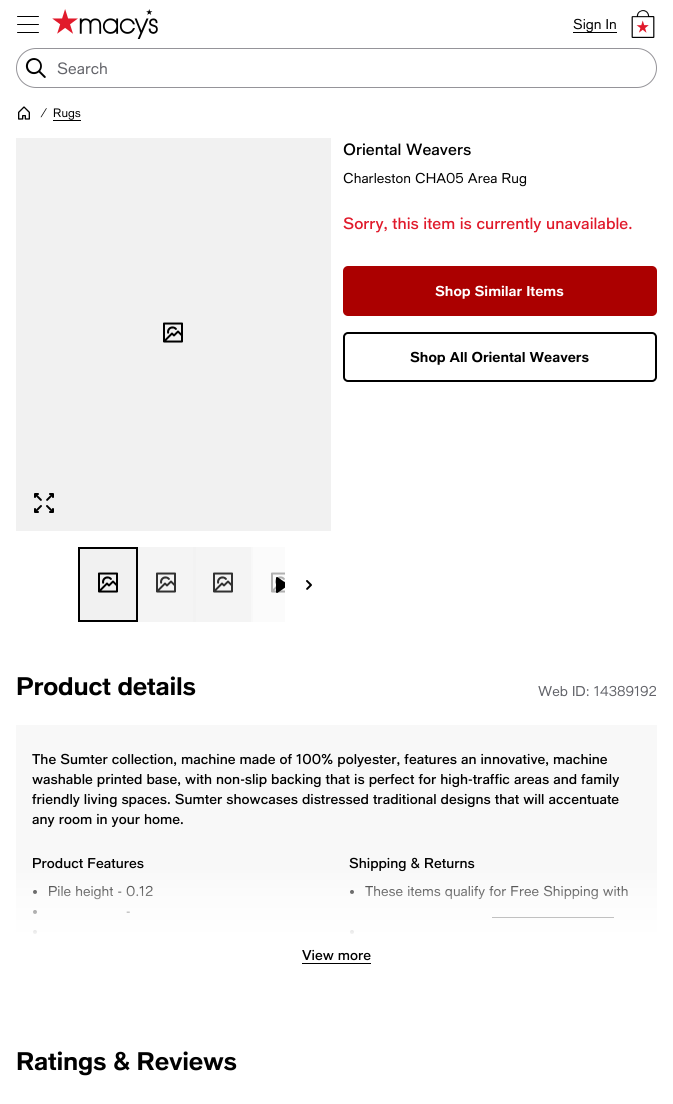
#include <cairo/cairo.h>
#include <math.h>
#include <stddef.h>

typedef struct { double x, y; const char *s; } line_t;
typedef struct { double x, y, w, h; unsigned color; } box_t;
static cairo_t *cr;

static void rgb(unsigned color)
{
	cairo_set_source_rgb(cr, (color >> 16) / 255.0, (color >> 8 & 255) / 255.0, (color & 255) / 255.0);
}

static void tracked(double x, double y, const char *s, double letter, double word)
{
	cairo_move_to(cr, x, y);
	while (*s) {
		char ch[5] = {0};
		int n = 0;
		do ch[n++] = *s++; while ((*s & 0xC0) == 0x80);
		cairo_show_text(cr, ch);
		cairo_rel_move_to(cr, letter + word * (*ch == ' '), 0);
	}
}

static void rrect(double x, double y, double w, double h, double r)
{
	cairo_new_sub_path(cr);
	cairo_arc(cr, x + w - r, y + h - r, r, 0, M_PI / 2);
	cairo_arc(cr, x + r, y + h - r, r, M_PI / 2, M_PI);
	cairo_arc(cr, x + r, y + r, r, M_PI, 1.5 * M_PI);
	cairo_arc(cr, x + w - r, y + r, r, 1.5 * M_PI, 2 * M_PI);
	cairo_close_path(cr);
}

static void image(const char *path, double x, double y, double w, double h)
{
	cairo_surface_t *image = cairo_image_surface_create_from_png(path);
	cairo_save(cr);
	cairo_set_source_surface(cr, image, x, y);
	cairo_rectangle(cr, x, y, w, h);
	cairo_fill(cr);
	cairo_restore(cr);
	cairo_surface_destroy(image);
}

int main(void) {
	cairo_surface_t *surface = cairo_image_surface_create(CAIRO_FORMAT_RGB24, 673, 1104);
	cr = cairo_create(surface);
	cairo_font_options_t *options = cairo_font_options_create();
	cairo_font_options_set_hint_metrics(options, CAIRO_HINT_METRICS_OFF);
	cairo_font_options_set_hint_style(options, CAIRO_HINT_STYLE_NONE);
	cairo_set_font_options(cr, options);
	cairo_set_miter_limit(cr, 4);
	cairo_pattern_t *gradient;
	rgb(0xffffff);
	cairo_paint(cr);
	{
		static const box_t items[] = {
			{253, 547, 32, 75, 0xfbfbfb},
			{196, 547, 55, 75, 0xf4f4f4},
			{251, 547, 2, 75, 0xf8f8f8},
			{138, 547, 55, 75, 0xf4f4f4},
			{193, 547, 3, 75, 0xf2f2f2},
		};
		for (size_t i = 0; i < sizeof items / sizeof *items; i++) {
			rgb(items[i].color);
			cairo_rectangle(cr, items[i].x, items[i].y, items[i].w, items[i].h);
			cairo_fill(cr);
		}
	}
	image("img/1.png", 17, 16, 22, 17);
	image("img/2.png", 52, 9, 106, 30);
	rgb(0x000000);
	cairo_rectangle(cr, 573, 32, 44, 1);
	cairo_fill(cr);
	image("img/3.png", 631, 10, 24, 28);
	rrect(16.5, 48.5, 640, 39, 19.5);
	rgb(0x959499);
	cairo_set_line_width(cr, 1);
	cairo_stroke(cr);
	image("img/4.png", 25, 58, 21, 20);
	image("img/5.png", 18, 106, 12, 14);
	rgb(0x000000);
	cairo_rectangle(cr, 53, 120, 28, 1);
	cairo_fill(cr);
	rgb(0xf1f1f1);
	cairo_rectangle(cr, 16, 138, 315, 393);
	cairo_fill(cr);
	image("img/6.png", 163, 322, 20, 21);
	image("img/7.png", 34, 493, 20, 20);
	cairo_rectangle(cr, 80, 549, 56, 71);
	cairo_fill(cr);
	image("img/6.png", 98, 572, 20, 21);
	cairo_rectangle(cr, 79, 548, 58, 73);
	rgb(0x000000);
	cairo_set_line_width(cr, 2);
	cairo_stroke(cr);
	image("img/8.png", 156, 572, 20, 21);
	image("img/8.png", 213, 572, 20, 21);
	image("img/9.png", 271, 572, 14, 21);
	image("img/10.png", 276, 577, 9, 16);
	image("img/11.png", 306, 580, 6, 10);
	rgb(0xab0000);
	rrect(343, 266, 314, 50, 5);
	cairo_fill(cr);
	rrect(344, 333, 312, 48, 4);
	rgb(0x000000);
	cairo_stroke(cr);
	rgb(0xf8f8f8);
	cairo_rectangle(cr, 16, 725, 641, 213);
	cairo_fill(cr);
	rgb(0x000000);
	cairo_arc(cr, 35, 892, 2, 0, 2 * M_PI);
	cairo_fill(cr);
	cairo_arc(cr, 35, 912, 2, 0, 2 * M_PI);
	cairo_fill(cr);
	cairo_arc(cr, 35, 932, 2, 0, 2 * M_PI);
	cairo_fill(cr);
	cairo_arc(cr, 352, 892, 2, 0, 2 * M_PI);
	cairo_fill(cr);
	cairo_rectangle(cr, 492, 917, 122, 1);
	cairo_fill(cr);
	cairo_arc(cr, 352, 932, 2, 0, 2 * M_PI);
	cairo_fill(cr);
	cairo_rectangle(cr, 302, 963, 69, 1);
	cairo_fill(cr);
	cairo_select_font_face(cr, "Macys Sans", CAIRO_FONT_SLANT_NORMAL, CAIRO_FONT_WEIGHT_NORMAL);
	cairo_set_font_size(cr, 14);
	cairo_move_to(cr, 573, 29);
	cairo_show_text(cr, "Sign In");
	cairo_set_font_size(cr, 16);
	rgb(0x626369);
	cairo_move_to(cr, 57, 74);
	cairo_show_text(cr, "Search");
	cairo_select_font_face(cr, "Macys Sans", CAIRO_FONT_SLANT_ITALIC, CAIRO_FONT_WEIGHT_NORMAL);
	cairo_set_font_size(cr, 12);
	rgb(0x000000);
	cairo_move_to(cr, 40, 117);
	cairo_show_text(cr, "/");
	cairo_select_font_face(cr, "Macys Sans", CAIRO_FONT_SLANT_NORMAL, CAIRO_FONT_WEIGHT_NORMAL);
	cairo_move_to(cr, 53, 117);
	cairo_show_text(cr, "Rugs");
	cairo_select_font_face(cr, "Macys Sans Medium", CAIRO_FONT_SLANT_NORMAL, CAIRO_FONT_WEIGHT_NORMAL);
	cairo_set_font_size(cr, 16);
	cairo_move_to(cr, 343, 155);
	cairo_show_text(cr, "Oriental Weavers");
	cairo_select_font_face(cr, "Macys Sans", CAIRO_FONT_SLANT_NORMAL, CAIRO_FONT_WEIGHT_NORMAL);
	cairo_set_font_size(cr, 14);
	cairo_move_to(cr, 343, 183);
	cairo_show_text(cr, "Charleston CHA05 Area Rug");
	cairo_select_font_face(cr, "Macys Sans Medium", CAIRO_FONT_SLANT_NORMAL, CAIRO_FONT_WEIGHT_NORMAL);
	cairo_set_font_size(cr, 16);
	rgb(0xe01a2b);
	cairo_move_to(cr, 343, 229);
	cairo_show_text(cr, "Sorry, this item is currently unavailable.");
	cairo_select_font_face(cr, "Macys Sans", CAIRO_FONT_SLANT_NORMAL, CAIRO_FONT_WEIGHT_BOLD);
	cairo_set_font_size(cr, 14);
	rgb(0xffffff);
	cairo_move_to(cr, 435, 296);
	cairo_show_text(cr, "Shop Similar Items");
	rgb(0x000000);
	cairo_move_to(cr, 410, 362);
	cairo_show_text(cr, "Shop All Oriental Weavers");
	cairo_set_font_size(cr, 25);
	tracked(16, 695, "Product details", -0.25, 0);
	cairo_select_font_face(cr, "Macys Sans", CAIRO_FONT_SLANT_NORMAL, CAIRO_FONT_WEIGHT_NORMAL);
	cairo_set_font_size(cr, 14);
	rgb(0x626369);
	cairo_move_to(cr, 538, 696);
	cairo_show_text(cr, "Web ID: 14389192");
	cairo_select_font_face(cr, "Macys Sans Medium", CAIRO_FONT_SLANT_NORMAL, CAIRO_FONT_WEIGHT_NORMAL);
	rgb(0x000000);
	{
		static const line_t items[] = {
			{32, 764, "The Sumter collection, machine made of 100% polyester, features an innovative, machine"},
			{32, 784, "washable printed base, with non-slip backing that is perfect for high-traffic areas and family"},
			{32, 804, "friendly living spaces. Sumter showcases distressed traditional designs that will accentuate"},
			{32, 824, "any room in your home."},
			{32, 868, "Product Features"},
		};
		for (size_t i = 0; i < sizeof items / sizeof *items; i++) {
			cairo_move_to(cr, items[i].x, items[i].y);
			cairo_show_text(cr, items[i].s);
		}
	}
	cairo_select_font_face(cr, "Macys Sans", CAIRO_FONT_SLANT_NORMAL, CAIRO_FONT_WEIGHT_NORMAL);
	cairo_move_to(cr, 48, 896);
	cairo_show_text(cr, "Pile height - 0.12");
	cairo_move_to(cr, 126, 916);
	cairo_show_text(cr, "-");
	cairo_select_font_face(cr, "Macys Sans Medium", CAIRO_FONT_SLANT_NORMAL, CAIRO_FONT_WEIGHT_NORMAL);
	cairo_move_to(cr, 349, 868);
	cairo_show_text(cr, "Shipping & Returns");
	cairo_select_font_face(cr, "Macys Sans", CAIRO_FONT_SLANT_NORMAL, CAIRO_FONT_WEIGHT_NORMAL);
	cairo_move_to(cr, 365, 896);
	cairo_show_text(cr, "These items qualify for Free Shipping with");
	gradient = cairo_pattern_create_linear(337, 869, 337, 965);
	cairo_pattern_add_color_stop_rgba(gradient, 0, 1, 1, 1, 0);
	cairo_pattern_add_color_stop_rgba(gradient, 0.28, 1, 1, 1, 0.5);
	cairo_pattern_add_color_stop_rgba(gradient, 0.72, 1, 1, 1, 1);
	cairo_set_source(cr, gradient);
	cairo_pattern_destroy(gradient);
	cairo_rectangle(cr, 16, 870, 641, 68);
	cairo_fill(cr);
	cairo_select_font_face(cr, "Macys Sans Medium", CAIRO_FONT_SLANT_NORMAL, CAIRO_FONT_WEIGHT_NORMAL);
	rgb(0x000000);
	cairo_move_to(cr, 302, 960);
	cairo_show_text(cr, "View more");
	cairo_select_font_face(cr, "Macys Sans", CAIRO_FONT_SLANT_NORMAL, CAIRO_FONT_WEIGHT_BOLD);
	cairo_set_font_size(cr, 25);
	tracked(16, 1070, "Ratings & Reviews", -0.25, 0);
	cairo_surface_write_to_png(surface, "page.png");
	cairo_font_options_destroy(options);
	cairo_destroy(cr);
	cairo_surface_destroy(surface);
	return 0;
}
